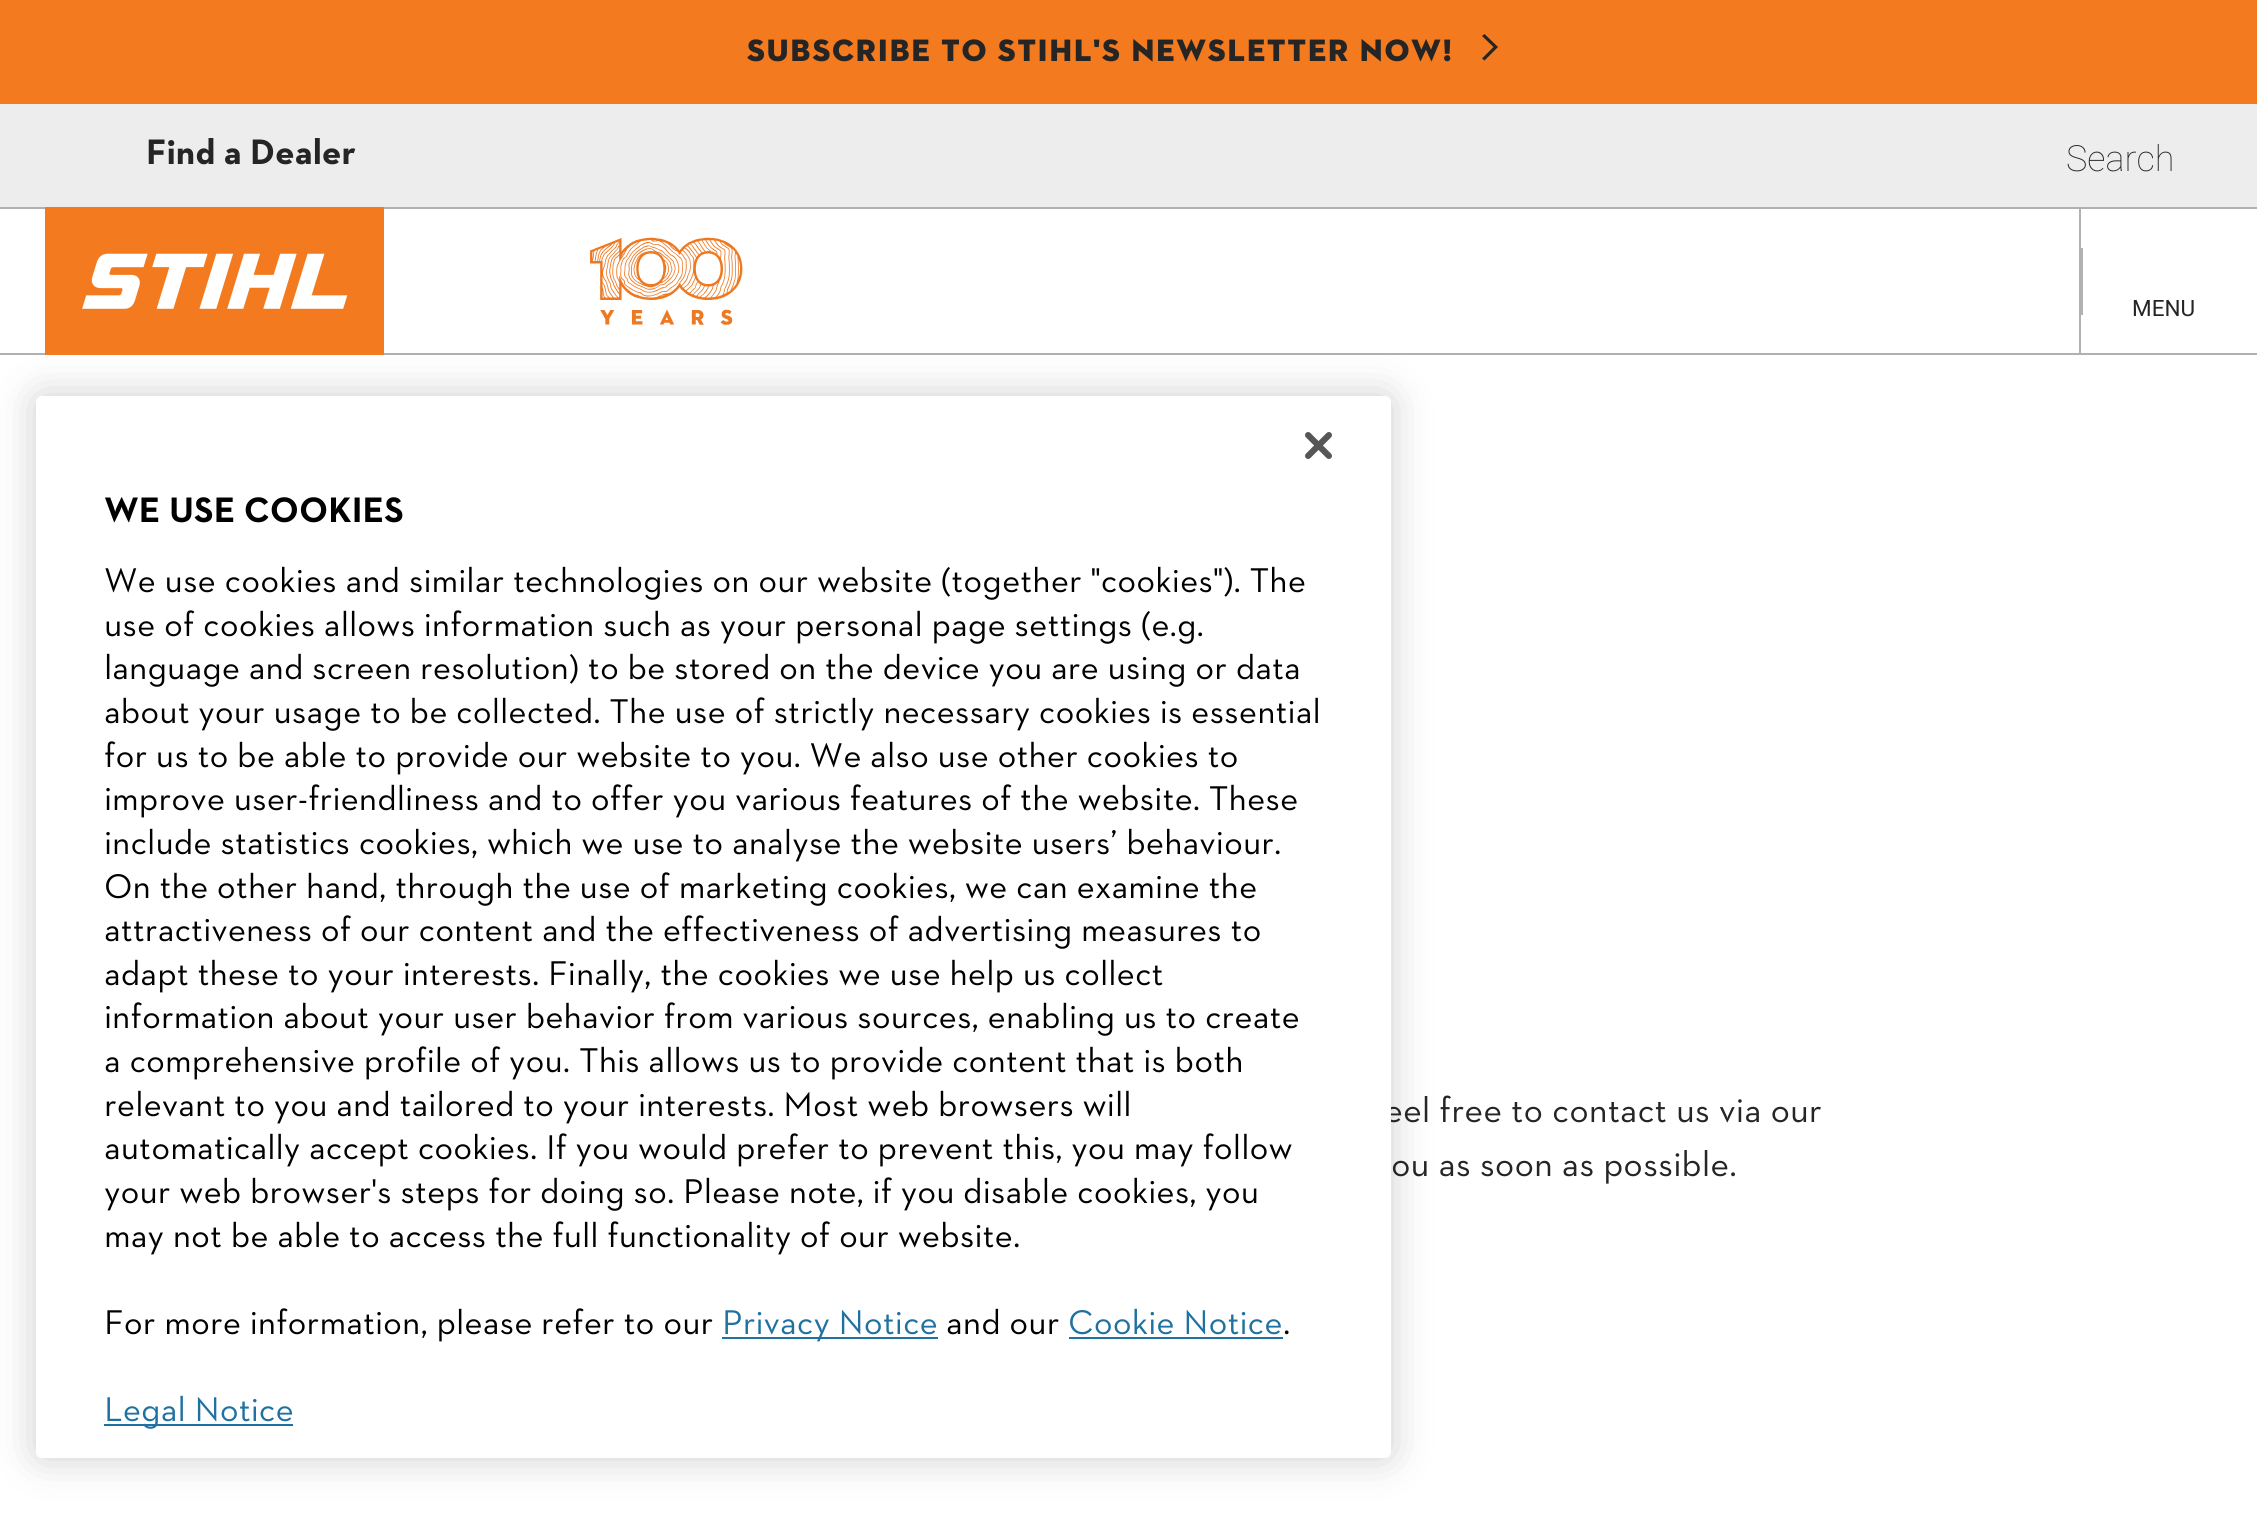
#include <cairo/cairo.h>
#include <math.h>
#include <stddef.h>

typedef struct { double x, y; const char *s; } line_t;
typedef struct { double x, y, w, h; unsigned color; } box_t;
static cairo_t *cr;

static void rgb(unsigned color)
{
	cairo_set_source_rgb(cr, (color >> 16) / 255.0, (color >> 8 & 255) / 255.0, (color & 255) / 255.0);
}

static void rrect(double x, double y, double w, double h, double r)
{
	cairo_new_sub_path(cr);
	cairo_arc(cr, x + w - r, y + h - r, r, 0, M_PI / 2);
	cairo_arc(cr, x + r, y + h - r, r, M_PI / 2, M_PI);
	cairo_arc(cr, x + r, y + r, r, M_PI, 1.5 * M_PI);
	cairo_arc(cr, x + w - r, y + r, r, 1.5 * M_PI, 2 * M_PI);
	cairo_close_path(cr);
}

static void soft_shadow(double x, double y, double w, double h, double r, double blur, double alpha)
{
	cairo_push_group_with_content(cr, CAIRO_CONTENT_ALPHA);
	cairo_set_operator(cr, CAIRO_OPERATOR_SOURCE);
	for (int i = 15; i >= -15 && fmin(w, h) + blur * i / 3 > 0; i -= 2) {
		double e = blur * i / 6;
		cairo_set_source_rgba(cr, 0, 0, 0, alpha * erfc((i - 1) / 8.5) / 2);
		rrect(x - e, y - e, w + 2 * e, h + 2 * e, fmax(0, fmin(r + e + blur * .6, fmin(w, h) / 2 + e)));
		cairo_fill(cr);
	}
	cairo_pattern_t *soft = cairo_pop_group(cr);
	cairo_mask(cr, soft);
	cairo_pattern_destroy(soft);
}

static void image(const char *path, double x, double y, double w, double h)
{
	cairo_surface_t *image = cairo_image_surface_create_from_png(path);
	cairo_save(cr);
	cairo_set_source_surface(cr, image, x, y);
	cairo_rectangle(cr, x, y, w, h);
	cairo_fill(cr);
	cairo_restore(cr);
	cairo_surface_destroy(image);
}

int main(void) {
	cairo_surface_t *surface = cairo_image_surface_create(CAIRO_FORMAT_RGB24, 2257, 1530);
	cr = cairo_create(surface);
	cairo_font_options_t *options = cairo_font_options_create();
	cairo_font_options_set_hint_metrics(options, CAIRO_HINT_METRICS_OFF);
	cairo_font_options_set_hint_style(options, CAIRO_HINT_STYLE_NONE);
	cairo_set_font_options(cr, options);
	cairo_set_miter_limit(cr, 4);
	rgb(0xffffff);
	cairo_paint(cr);
	rgb(0xf37a1f);
	cairo_rectangle(cr, 0, 0, 2257, 104);
	cairo_fill(cr);
	rgb(0x252525);
	cairo_new_path(cr);
	cairo_move_to(cr, 1484.5, 60.5);
	cairo_line_to(cr, 1482, 58.5);
	cairo_line_to(cr, 1493.5, 47);
	cairo_line_to(cr, 1482, 36);
	cairo_line_to(cr, 1484.5, 34);
	cairo_line_to(cr, 1498, 47);
	cairo_close_path(cr);
	cairo_fill(cr);
	{
		static const box_t items[] = {
			{0, 104, 2257, 103, 0xededed},
			{384, 207, 1873, 2, 0xb1b1b1},
			{384, 353, 1873, 2, 0xb1b1b1},
			{0, 207, 45, 2, 0xb1b1b1},
			{0, 353, 45, 2, 0xb1b1b1},
		};
		for (size_t i = 0; i < sizeof items / sizeof *items; i++) {
			rgb(items[i].color);
			cairo_rectangle(cr, items[i].x, items[i].y, items[i].w, items[i].h);
			cairo_fill(cr);
		}
	}
	image("img/1.png", 45, 207, 339, 148);
	image("img/2.png", 590, 237, 153, 88);
	cairo_rectangle(cr, 2079, 209, 2, 144);
	cairo_fill(cr);
	cairo_rectangle(cr, 2081, 248, 2, 67);
	cairo_fill(cr);
	rgb(0x000000);
	soft_shadow(36, 396, 1355, 1062, 6, 20, 0.2);
	cairo_select_font_face(cr, "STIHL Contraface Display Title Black", CAIRO_FONT_SLANT_NORMAL, CAIRO_FONT_WEIGHT_NORMAL);
	cairo_set_font_size(cr, 31.5);
	rgb(0x252525);
	cairo_move_to(cr, 746, 61);
	cairo_show_text(cr, "SUBSCRIBE TO STIHL'S NEWSLETTER NOW!");
	cairo_select_font_face(cr, "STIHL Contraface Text", CAIRO_FONT_SLANT_NORMAL, CAIRO_FONT_WEIGHT_BOLD);
	cairo_set_font_size(cr, 36);
	cairo_move_to(cr, 146, 164);
	cairo_show_text(cr, "Find a Dealer");
	cairo_select_font_face(cr, "Roboto Thin", CAIRO_FONT_SLANT_NORMAL, CAIRO_FONT_WEIGHT_NORMAL);
	cairo_move_to(cr, 2066, 171);
	cairo_show_text(cr, "Search");
	cairo_select_font_face(cr, "Roboto", CAIRO_FONT_SLANT_NORMAL, CAIRO_FONT_WEIGHT_NORMAL);
	cairo_set_font_size(cr, 22.5);
	cairo_move_to(cr, 2132, 316);
	cairo_show_text(cr, "MENU");
	cairo_select_font_face(cr, "STIHL Contraface Text", CAIRO_FONT_SLANT_NORMAL, CAIRO_FONT_WEIGHT_NORMAL);
	cairo_set_font_size(cr, 36);
	cairo_move_to(cr, 1384, 1122);
	cairo_show_text(cr, "eel free to contact us via our");
	rgb(0xffffff);
	rrect(36, 396, 1355, 1062, 6);
	cairo_fill(cr);
	image("img/3.png", 1305, 432, 27, 27);
	rgb(0x1e71a1);
	cairo_rectangle(cr, 104, 1424, 189, 2);
	cairo_fill(cr);
	cairo_set_font_size(cr, 34.9);
	cairo_move_to(cr, 104, 1421);
	cairo_show_text(cr, "Legal Notice");
	rgb(0x000000);
	cairo_move_to(cr, 1283, 1334);
	cairo_show_text(cr, ".");
	rgb(0x1e71a1);
	cairo_move_to(cr, 1068, 1334);
	cairo_show_text(cr, "Cookie Notice");
	cairo_rectangle(cr, 1069, 1337, 214, 2);
	cairo_fill(cr);
	rgb(0x000000);
	cairo_move_to(cr, 946, 1334);
	cairo_show_text(cr, "and our");
	rgb(0x1e71a1);
	cairo_rectangle(cr, 722, 1337, 216, 2);
	cairo_fill(cr);
	cairo_move_to(cr, 722, 1334);
	cairo_show_text(cr, "Privacy Notice");
	rgb(0x000000);
	{
		static const line_t items[] = {
			{104, 1334, "For more information, please refer to our"},
			{104, 1247, "may not be able to access the full functionality of our website."},
			{104, 1203, "your web browser's steps for doing so. Please note, if you disable cookies, you"},
			{104, 1159, "automatically accept cookies. If you would prefer to prevent this, you may follow"},
			{104, 1116, "relevant to you and tailored to your interests. Most web browsers will"},
			{104, 1072, "a comprehensive profile of you. This allows us to provide content that is both"},
			{104, 1028, "information about your user behavior from various sources, enabling us to create"},
			{104, 985, "adapt these to your interests. Finally, the cookies we use help us collect"},
			{104, 941, "attractiveness of our content and the effectiveness of advertising measures to"},
			{104, 898, "On the other hand, through the use of marketing cookies, we can examine the"},
			{104, 854, "include statistics cookies, which we use to analyse the website users’ behaviour."},
			{104, 810, "improve user-friendliness and to offer you various features of the website. These"},
			{104, 767, "for us to be able to provide our website to you. We also use other cookies to"},
			{104, 723, "about your usage to be collected. The use of strictly necessary cookies is essential"},
			{104, 679, "language and screen resolution) to be stored on the device you are using or data"},
			{104, 636, "use of cookies allows information such as your personal page settings (e.g."},
			{104, 592, "We use cookies and similar technologies on our website (together \"cookies\"). The"},
		};
		for (size_t i = 0; i < sizeof items / sizeof *items; i++) {
			cairo_move_to(cr, items[i].x, items[i].y);
			cairo_show_text(cr, items[i].s);
		}
	}
	cairo_select_font_face(cr, "STIHL Contraface Text", CAIRO_FONT_SLANT_NORMAL, CAIRO_FONT_WEIGHT_BOLD);
	cairo_set_font_size(cr, 36);
	cairo_move_to(cr, 104, 522);
	cairo_show_text(cr, "WE USE COOKIES");
	cairo_select_font_face(cr, "STIHL Contraface Text", CAIRO_FONT_SLANT_NORMAL, CAIRO_FONT_WEIGHT_NORMAL);
	rgb(0x252525);
	cairo_move_to(cr, 1391, 1176);
	cairo_show_text(cr, "ou as soon as possible.");
	cairo_surface_write_to_png(surface, "page.png");
	cairo_font_options_destroy(options);
	cairo_destroy(cr);
	cairo_surface_destroy(surface);
	return 0;
}
